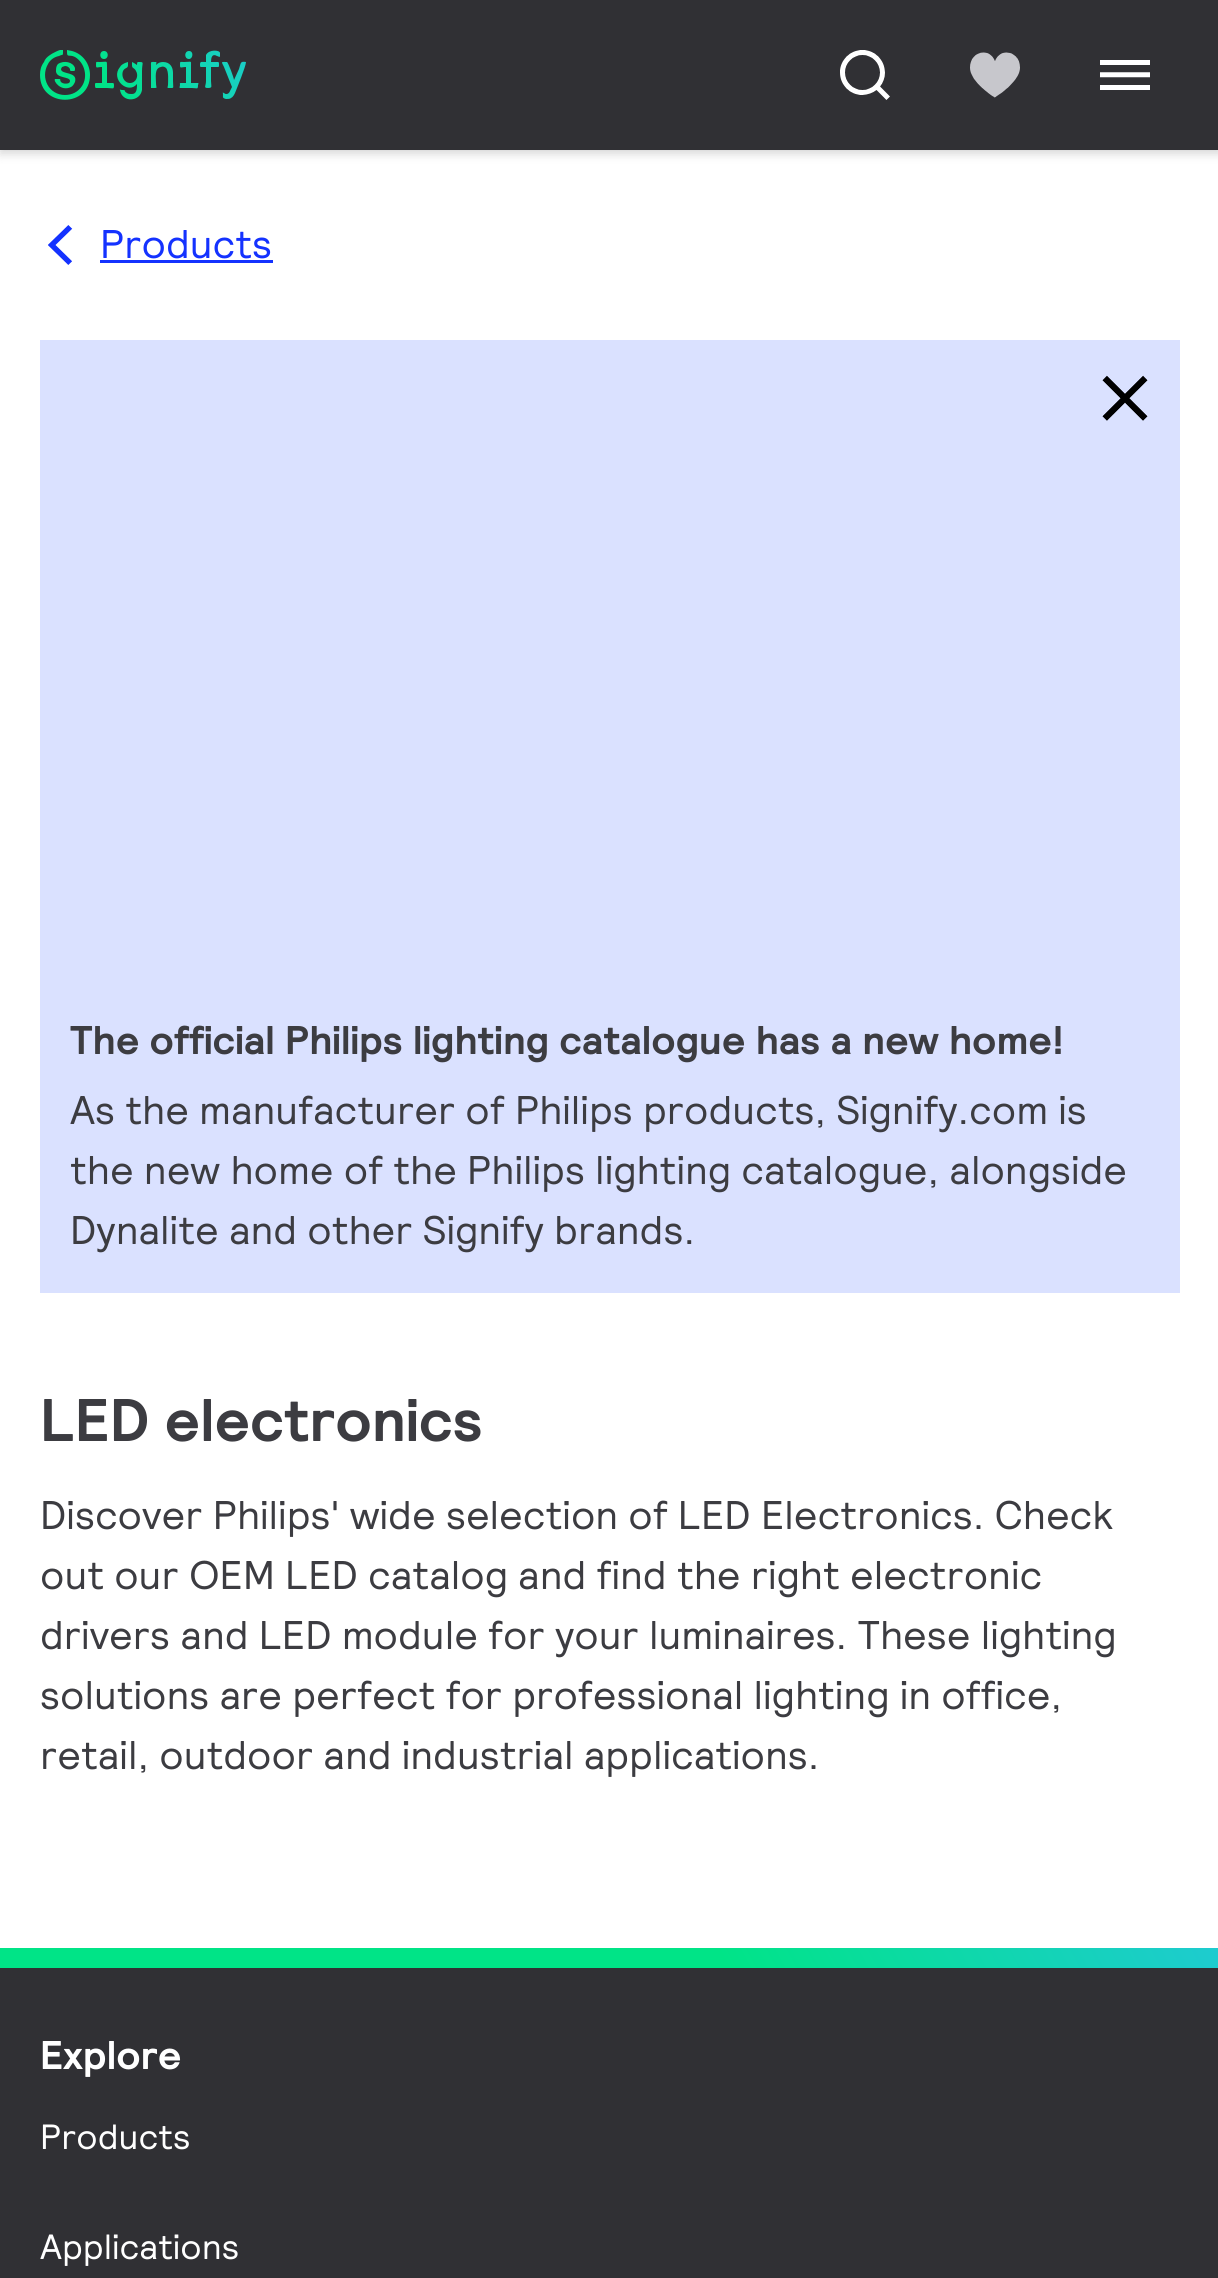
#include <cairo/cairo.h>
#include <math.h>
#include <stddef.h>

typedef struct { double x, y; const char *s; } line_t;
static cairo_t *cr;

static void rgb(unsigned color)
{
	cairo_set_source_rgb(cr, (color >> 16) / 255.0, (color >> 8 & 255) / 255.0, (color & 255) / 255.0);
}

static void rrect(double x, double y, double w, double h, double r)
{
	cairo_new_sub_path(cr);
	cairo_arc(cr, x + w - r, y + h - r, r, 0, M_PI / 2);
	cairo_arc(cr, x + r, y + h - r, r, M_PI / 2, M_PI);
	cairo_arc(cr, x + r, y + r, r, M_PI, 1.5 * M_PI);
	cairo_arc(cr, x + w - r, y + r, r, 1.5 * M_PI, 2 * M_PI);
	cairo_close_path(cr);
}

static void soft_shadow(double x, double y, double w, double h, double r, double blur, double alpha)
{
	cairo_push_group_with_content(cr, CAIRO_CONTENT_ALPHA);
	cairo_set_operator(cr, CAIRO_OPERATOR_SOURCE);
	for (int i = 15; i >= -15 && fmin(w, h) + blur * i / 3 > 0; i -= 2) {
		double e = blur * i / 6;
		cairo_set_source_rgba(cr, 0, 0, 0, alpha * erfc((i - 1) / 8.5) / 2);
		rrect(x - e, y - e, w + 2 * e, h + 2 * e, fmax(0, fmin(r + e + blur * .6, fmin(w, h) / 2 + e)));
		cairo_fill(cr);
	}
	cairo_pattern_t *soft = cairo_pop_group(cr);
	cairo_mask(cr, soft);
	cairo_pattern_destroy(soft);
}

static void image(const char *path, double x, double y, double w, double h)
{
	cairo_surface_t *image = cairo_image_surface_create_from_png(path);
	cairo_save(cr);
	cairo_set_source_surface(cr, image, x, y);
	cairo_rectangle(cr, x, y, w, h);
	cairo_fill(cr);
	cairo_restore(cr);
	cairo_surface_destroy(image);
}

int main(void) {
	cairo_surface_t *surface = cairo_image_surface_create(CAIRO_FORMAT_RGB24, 1218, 2278);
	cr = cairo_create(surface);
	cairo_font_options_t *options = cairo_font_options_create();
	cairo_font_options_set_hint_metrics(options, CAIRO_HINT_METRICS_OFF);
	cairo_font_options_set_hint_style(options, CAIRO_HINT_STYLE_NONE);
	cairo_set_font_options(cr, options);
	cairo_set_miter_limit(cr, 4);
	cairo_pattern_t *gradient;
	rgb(0xffffff);
	cairo_paint(cr);
	rgb(0x000000);
	soft_shadow(0, 5, 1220, 150, 0, 5, 0.1);
	soft_shadow(0, 0, 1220, 150, 0, 5, 0.1);
	rgb(0x303034);
	cairo_rectangle(cr, 0, 0, 1218, 150);
	cairo_fill(cr);
	cairo_save(cr);
	cairo_rectangle(cr, 40, 50, 208, 50);
	cairo_clip(cr);
	gradient = cairo_pattern_create_linear(-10, 182, 232, 12);
	cairo_pattern_add_color_stop_rgba(gradient, 0.5, 0, 0.894, 0.529, 1);
	cairo_pattern_add_color_stop_rgba(gradient, 1, 0.118, 0.796, 0.816, 1);
	cairo_set_source(cr, gradient);
	cairo_pattern_destroy(gradient);
	cairo_set_fill_rule(cr, CAIRO_FILL_RULE_EVEN_ODD);
	cairo_new_path(cr);
	cairo_move_to(cr, 232, 87);
	cairo_line_to(cr, 224, 67);
	cairo_curve_to(cr, 221, 61, 221, 62, 227, 62);
	cairo_curve_to(cr, 228, 62, 234, 78, 234, 80);
	cairo_line_to(cr, 239, 69);
	cairo_curve_to(cr, 241, 63, 240, 61, 246, 62);
	cairo_curve_to(cr, 246, 66, 237, 88, 235, 93);
	cairo_curve_to(cr, 234, 95, 233, 97, 231, 98);
	cairo_curve_to(cr, 230, 99, 228, 99, 226, 99);
	cairo_curve_to(cr, 222, 98, 223, 97, 223, 94);
	cairo_curve_to(cr, 223, 93, 222, 92, 224, 93);
	cairo_curve_to(cr, 226, 95, 229, 94, 230, 91);
	cairo_close_path(cr);
	cairo_move_to(cr, 90, 75);
	cairo_curve_to(cr, 90, 64, 83, 54, 72, 51);
	cairo_line_to(cr, 67, 50);
	cairo_line_to(cr, 67, 52);
	cairo_curve_to(cr, 67, 58, 69, 54, 75, 57);
	cairo_curve_to(cr, 85, 63, 88, 77, 82, 86);
	cairo_curve_to(cr, 78, 92, 72, 95, 65, 95);
	cairo_curve_to(cr, 49, 95, 40, 78, 48, 64);
	cairo_curve_to(cr, 50, 60, 54, 57, 59, 56);
	cairo_curve_to(cr, 63, 54, 63, 56, 63, 52);
	cairo_line_to(cr, 63, 50);
	cairo_curve_to(cr, 62, 48, 51, 54, 50, 55);
	cairo_curve_to(cr, 47, 57, 45, 59, 44, 62);
	cairo_curve_to(cr, 41, 66, 40, 70, 40, 75);
	cairo_curve_to(cr, 40, 108, 90, 108, 90, 75);
	cairo_close_path(cr);
	cairo_move_to(cr, 201, 67);
	cairo_curve_to(cr, 200, 67, 200, 66, 200, 65);
	cairo_curve_to(cr, 200, 61, 201, 62, 206, 62);
	cairo_line_to(cr, 206, 55);
	cairo_curve_to(cr, 209, 49, 220, 50, 220, 53);
	cairo_line_to(cr, 220, 56);
	cairo_curve_to(cr, 220, 58, 218, 56, 217, 56);
	cairo_curve_to(cr, 212, 53, 211, 58, 211, 62);
	cairo_line_to(cr, 217, 62);
	cairo_curve_to(cr, 219, 62, 219, 62, 219, 65);
	cairo_curve_to(cr, 219, 67, 219, 67, 217, 67);
	cairo_line_to(cr, 211, 67);
	cairo_line_to(cr, 211, 81);
	cairo_curve_to(cr, 211, 86, 213, 88, 208, 88);
	cairo_curve_to(cr, 203, 88, 206, 86, 206, 81);
	cairo_line_to(cr, 206, 67);
	cairo_close_path(cr);
	cairo_move_to(cr, 104, 59);
	cairo_curve_to(cr, 99, 59, 99, 51, 104, 51);
	cairo_curve_to(cr, 109, 51, 109, 59, 104, 59);
	cairo_close_path(cr);
	cairo_move_to(cr, 189, 59);
	cairo_curve_to(cr, 184, 59, 184, 51, 189, 51);
	cairo_curve_to(cr, 194, 51, 193, 59, 189, 59);
	cairo_close_path(cr);
	cairo_move_to(cr, 65, 66);
	cairo_line_to(cr, 62, 67);
	cairo_line_to(cr, 61, 69);
	cairo_curve_to(cr, 61, 75, 78, 71, 75, 82);
	cairo_curve_to(cr, 74, 84, 73, 86, 71, 87);
	cairo_curve_to(cr, 61, 92, 53, 81, 55, 79);
	cairo_line_to(cr, 58, 79);
	cairo_curve_to(cr, 62, 79, 59, 79, 61, 82);
	cairo_curve_to(cr, 63, 84, 67, 84, 69, 83);
	cairo_curve_to(cr, 69, 83, 70, 82, 70, 81);
	cairo_curve_to(cr, 70, 76, 55, 79, 56, 70);
	cairo_curve_to(cr, 56, 67, 57, 65, 58, 64);
	cairo_curve_to(cr, 64, 60, 73, 62, 75, 68);
	cairo_curve_to(cr, 75, 71, 75, 71, 73, 71);
	cairo_curve_to(cr, 70, 71, 70, 71, 70, 69);
	cairo_curve_to(cr, 69, 67, 67, 66, 65, 66);
	cairo_close_path(cr);
	cairo_move_to(cr, 163, 62);
	cairo_curve_to(cr, 170, 62, 173, 67, 173, 73);
	cairo_line_to(cr, 173, 81);
	cairo_curve_to(cr, 173, 89, 175, 88, 168, 88);
	cairo_curve_to(cr, 167, 88, 168, 86, 168, 85);
	cairo_curve_to(cr, 168, 82, 169, 71, 166, 68);
	cairo_curve_to(cr, 165, 67, 163, 66, 161, 67);
	cairo_curve_to(cr, 154, 68, 156, 78, 156, 83);
	cairo_curve_to(cr, 156, 88, 158, 88, 154, 88);
	cairo_line_to(cr, 151, 88);
	cairo_line_to(cr, 151, 67);
	cairo_curve_to(cr, 151, 61, 150, 62, 156, 62);
	cairo_curve_to(cr, 157, 62, 156, 64, 156, 65);
	cairo_curve_to(cr, 158, 63, 160, 62, 163, 62);
	cairo_close_path(cr);
	cairo_move_to(cr, 138, 62);
	cairo_curve_to(cr, 145, 62, 142, 62, 142, 71);
	cairo_line_to(cr, 142, 90);
	cairo_curve_to(cr, 140, 102, 122, 103, 120, 90);
	cairo_curve_to(cr, 119, 89, 121, 90, 122, 90);
	cairo_curve_to(cr, 127, 90, 123, 91, 127, 93);
	cairo_curve_to(cr, 128, 94, 130, 94, 132, 94);
	cairo_curve_to(cr, 137, 94, 137, 88, 137, 84);
	cairo_curve_to(cr, 128, 95, 110, 79, 120, 67);
	cairo_curve_to(cr, 121, 65, 123, 64, 125, 63);
	cairo_line_to(cr, 128, 62);
	cairo_line_to(cr, 128, 65);
	cairo_curve_to(cr, 128, 69, 125, 67, 123, 71);
	cairo_curve_to(cr, 121, 76, 124, 83, 130, 83);
	cairo_curve_to(cr, 136, 83, 139, 76, 136, 71);
	cairo_curve_to(cr, 134, 67, 132, 69, 132, 65);
	cairo_line_to(cr, 132, 62);
	cairo_line_to(cr, 134, 63);
	cairo_line_to(cr, 137, 65);
	cairo_curve_to(cr, 137, 64, 137, 62, 138, 62);
	cairo_close_path(cr);
	cairo_move_to(cr, 113, 83);
	cairo_curve_to(cr, 114, 83, 114, 85, 114, 85);
	cairo_curve_to(cr, 114, 90, 113, 88, 107, 88);
	cairo_line_to(cr, 96, 88);
	cairo_curve_to(cr, 95, 88, 95, 86, 95, 85);
	cairo_curve_to(cr, 95, 83, 95, 83, 97, 83);
	cairo_line_to(cr, 102, 83);
	cairo_line_to(cr, 102, 67);
	cairo_curve_to(cr, 97, 67, 96, 69, 96, 65);
	cairo_curve_to(cr, 96, 61, 96, 62, 100, 62);
	cairo_curve_to(cr, 107, 62, 107, 60, 107, 66);
	cairo_line_to(cr, 107, 83);
	cairo_close_path(cr);
	cairo_move_to(cr, 198, 83);
	cairo_curve_to(cr, 199, 83, 198, 85, 198, 85);
	cairo_curve_to(cr, 198, 90, 197, 88, 192, 88);
	cairo_line_to(cr, 180, 88);
	cairo_curve_to(cr, 179, 88, 180, 86, 180, 85);
	cairo_curve_to(cr, 180, 83, 179, 83, 182, 83);
	cairo_line_to(cr, 186, 83);
	cairo_line_to(cr, 186, 67);
	cairo_curve_to(cr, 181, 67, 180, 69, 180, 65);
	cairo_curve_to(cr, 180, 61, 180, 62, 184, 62);
	cairo_curve_to(cr, 192, 62, 191, 60, 191, 66);
	cairo_line_to(cr, 191, 83);
	cairo_close_path(cr);
	cairo_fill(cr);
	cairo_restore(cr);
	image("img/1.png", 840, 50, 50, 50);
	image("img/2.png", 970, 52, 50, 46);
	image("img/3.png", 1100, 60, 50, 30);
	image("img/4.png", 48, 225, 25, 40);
	rgb(0x1432ff);
	cairo_rectangle(cr, 100, 260, 173, 3);
	cairo_fill(cr);
	rgb(0xdae1ff);
	cairo_rectangle(cr, 40, 340, 1140, 953);
	cairo_fill(cr);
	image("img/5.png", 1102, 375, 46, 46);
	rgb(0x303034);
	cairo_rectangle(cr, 0, 1968, 1218, 310);
	cairo_fill(cr);
	gradient = cairo_pattern_create_linear(136, 2217, 1084, 1698);
	cairo_pattern_add_color_stop_rgba(gradient, 0.59, 0, 0.894, 0.529, 1);
	cairo_pattern_add_color_stop_rgba(gradient, 1, 0.118, 0.796, 0.816, 1);
	cairo_set_source(cr, gradient);
	cairo_pattern_destroy(gradient);
	cairo_rectangle(cr, 0, 1948, 1218, 20);
	cairo_fill(cr);
	cairo_select_font_face(cr, "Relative", CAIRO_FONT_SLANT_NORMAL, CAIRO_FONT_WEIGHT_NORMAL);
	cairo_set_font_size(cr, 40);
	rgb(0x1432ff);
	cairo_move_to(cr, 100, 258);
	cairo_show_text(cr, "Products");
	cairo_select_font_face(cr, "Relative", CAIRO_FONT_SLANT_NORMAL, CAIRO_FONT_WEIGHT_BOLD);
	rgb(0x3c3c41);
	cairo_move_to(cr, 70, 1054);
	cairo_show_text(cr, "The official Philips lighting catalogue has a new home!");
	cairo_select_font_face(cr, "Relative", CAIRO_FONT_SLANT_NORMAL, CAIRO_FONT_WEIGHT_NORMAL);
	{
		static const line_t items[] = {
			{70, 1124, "As the manufacturer of Philips products, Signify.com is"},
			{70, 1184, "the new home of the Philips lighting catalogue, alongside"},
			{70, 1244, "Dynalite and other Signify brands."},
		};
		for (size_t i = 0; i < sizeof items / sizeof *items; i++) {
			cairo_move_to(cr, items[i].x, items[i].y);
			cairo_show_text(cr, items[i].s);
		}
	}
	cairo_select_font_face(cr, "Relative", CAIRO_FONT_SLANT_NORMAL, CAIRO_FONT_WEIGHT_BOLD);
	cairo_set_font_size(cr, 60);
	cairo_move_to(cr, 40, 1441);
	cairo_show_text(cr, "LED electronics");
	cairo_select_font_face(cr, "Relative", CAIRO_FONT_SLANT_NORMAL, CAIRO_FONT_WEIGHT_NORMAL);
	cairo_set_font_size(cr, 40);
	{
		static const line_t items[] = {
			{40, 1529, "Discover Philips' wide selection of LED Electronics. Check"},
			{40, 1589, "out our OEM LED catalog and find the right electronic"},
			{40, 1649, "drivers and LED module for your luminaires. These lighting"},
			{40, 1709, "solutions are perfect for professional lighting in office,"},
			{40, 1769, "retail, outdoor and industrial applications."},
		};
		for (size_t i = 0; i < sizeof items / sizeof *items; i++) {
			cairo_move_to(cr, items[i].x, items[i].y);
			cairo_show_text(cr, items[i].s);
		}
	}
	cairo_select_font_face(cr, "Relative", CAIRO_FONT_SLANT_NORMAL, CAIRO_FONT_WEIGHT_BOLD);
	rgb(0xffffff);
	cairo_move_to(cr, 40, 2069);
	cairo_show_text(cr, "Explore");
	cairo_select_font_face(cr, "Relative", CAIRO_FONT_SLANT_NORMAL, CAIRO_FONT_WEIGHT_NORMAL);
	cairo_set_font_size(cr, 35);
	cairo_move_to(cr, 40, 2149);
	cairo_show_text(cr, "Products");
	cairo_move_to(cr, 40, 2259);
	cairo_show_text(cr, "Applications");
	cairo_surface_write_to_png(surface, "page.png");
	cairo_font_options_destroy(options);
	cairo_destroy(cr);
	cairo_surface_destroy(surface);
	return 0;
}
